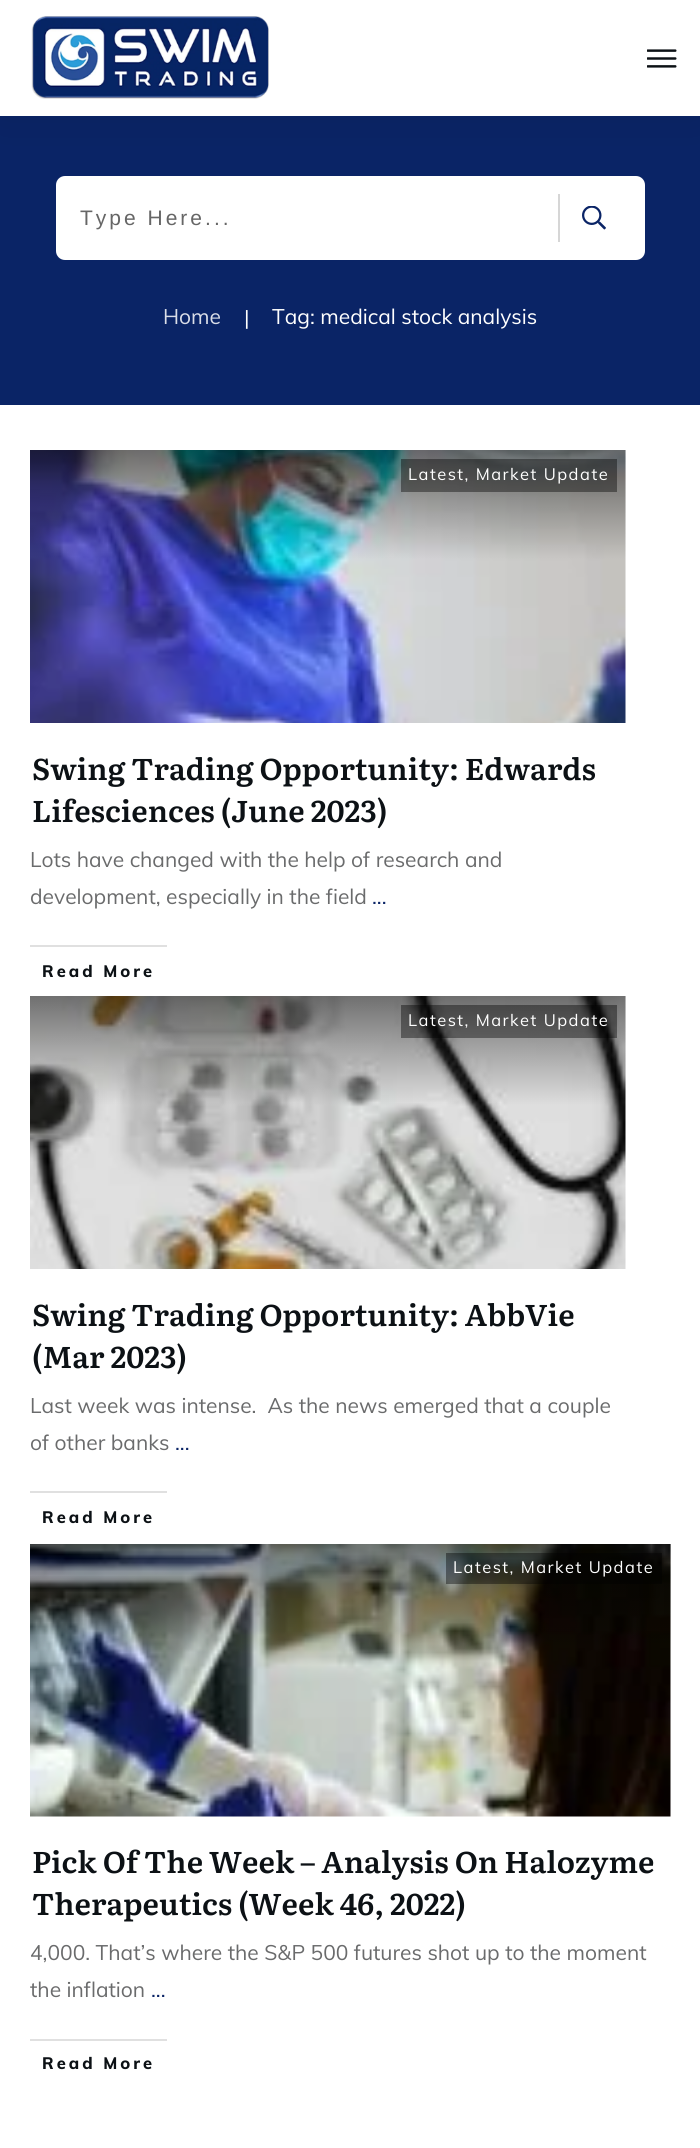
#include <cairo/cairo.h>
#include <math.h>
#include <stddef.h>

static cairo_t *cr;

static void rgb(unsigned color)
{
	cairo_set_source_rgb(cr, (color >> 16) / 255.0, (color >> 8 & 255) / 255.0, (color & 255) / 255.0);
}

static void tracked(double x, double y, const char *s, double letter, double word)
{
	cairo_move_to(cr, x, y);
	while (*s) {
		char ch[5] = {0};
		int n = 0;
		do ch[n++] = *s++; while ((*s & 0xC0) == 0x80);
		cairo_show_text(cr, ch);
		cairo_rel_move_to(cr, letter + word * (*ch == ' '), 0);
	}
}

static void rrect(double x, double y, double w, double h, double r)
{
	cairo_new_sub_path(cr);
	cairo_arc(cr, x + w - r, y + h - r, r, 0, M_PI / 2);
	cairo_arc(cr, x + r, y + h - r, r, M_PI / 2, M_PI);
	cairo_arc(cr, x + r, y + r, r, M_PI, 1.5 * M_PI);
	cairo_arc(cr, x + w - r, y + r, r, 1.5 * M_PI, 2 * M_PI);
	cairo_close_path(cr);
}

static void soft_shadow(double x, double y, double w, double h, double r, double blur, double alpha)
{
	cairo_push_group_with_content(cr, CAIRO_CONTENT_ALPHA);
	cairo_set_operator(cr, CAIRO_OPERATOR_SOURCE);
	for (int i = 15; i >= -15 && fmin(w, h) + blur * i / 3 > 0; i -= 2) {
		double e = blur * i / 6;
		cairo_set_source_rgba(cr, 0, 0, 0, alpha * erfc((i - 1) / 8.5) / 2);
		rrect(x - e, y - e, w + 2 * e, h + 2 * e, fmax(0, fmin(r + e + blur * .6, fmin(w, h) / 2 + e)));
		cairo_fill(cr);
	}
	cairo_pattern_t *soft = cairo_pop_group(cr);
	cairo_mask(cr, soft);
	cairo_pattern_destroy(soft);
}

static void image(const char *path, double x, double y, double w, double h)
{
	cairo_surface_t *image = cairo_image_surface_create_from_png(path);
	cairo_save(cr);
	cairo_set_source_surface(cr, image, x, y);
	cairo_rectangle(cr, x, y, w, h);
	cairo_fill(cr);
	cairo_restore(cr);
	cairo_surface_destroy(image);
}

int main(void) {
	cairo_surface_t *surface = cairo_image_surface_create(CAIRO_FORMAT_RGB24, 700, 2148);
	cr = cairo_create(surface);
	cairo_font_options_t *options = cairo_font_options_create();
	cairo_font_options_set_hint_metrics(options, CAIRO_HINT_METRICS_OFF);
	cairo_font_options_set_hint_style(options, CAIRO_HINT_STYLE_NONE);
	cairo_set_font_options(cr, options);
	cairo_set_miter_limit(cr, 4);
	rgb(0xffffff);
	cairo_paint(cr);
	rgb(0x0a2466);
	cairo_rectangle(cr, 0, 116, 700, 289);
	cairo_fill(cr);
	rgb(0xffffff);
	rrect(56, 176, 589, 84, 9);
	cairo_fill(cr);
	rgb(0x000000);
	soft_shadow(0, 3, 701, 116, 0, 22.5, 0.08);
	rgb(0xffffff);
	cairo_rectangle(cr, 0, 0, 700, 116);
	cairo_fill(cr);
	image("img/1.png", 31, 16, 238, 83);
	image("img/2.png", 647, 49, 30, 19);
	rgb(0xd6d6d6);
	cairo_rectangle(cr, 558, 194, 2, 48);
	cairo_fill(cr);
	image("img/3.png", 582, 206, 24, 24);
	image("img/4.png", 30, 450, 596, 273);
	cairo_set_source_rgba(cr, 0, 0, 0, 0.4);
	cairo_rectangle(cr, 401, 459, 216, 33);
	cairo_fill(cr);
	rgb(0xe0e0e0);
	cairo_rectangle(cr, 30, 945, 137, 2);
	cairo_fill(cr);
	image("img/5.png", 30, 996, 596, 273);
	cairo_set_source_rgba(cr, 0, 0, 0, 0.4);
	cairo_rectangle(cr, 401, 1005, 216, 33);
	cairo_fill(cr);
	rgb(0xe0e0e0);
	cairo_rectangle(cr, 30, 1491, 137, 2);
	cairo_fill(cr);
	image("img/6.png", 30, 1544, 641, 273);
	cairo_set_source_rgba(cr, 0, 0, 0, 0.4);
	cairo_rectangle(cr, 446, 1553, 216, 31);
	cairo_fill(cr);
	rgb(0xe0e0e0);
	cairo_rectangle(cr, 30, 2039, 137, 2);
	cairo_fill(cr);
	cairo_select_font_face(cr, "Liberation Sans", CAIRO_FONT_SLANT_NORMAL, CAIRO_FONT_WEIGHT_NORMAL);
	cairo_set_font_size(cr, 21);
	rgb(0x666666);
	tracked(80, 225, "Type Here...", 3, 0);
	cairo_select_font_face(cr, "Muli", CAIRO_FONT_SLANT_NORMAL, CAIRO_FONT_WEIGHT_NORMAL);
	rgb(0xdadee8);
	cairo_move_to(cr, 163, 324);
	cairo_show_text(cr, "Home");
	rgb(0xffffff);
	cairo_move_to(cr, 244, 325);
	cairo_show_text(cr, "|");
	cairo_move_to(cr, 272, 324);
	cairo_show_text(cr, "Tag: medical stock analysis");
	cairo_set_font_size(cr, 16.5);
	tracked(408, 480, "Latest, Market Update", 1.5, 0);
	cairo_select_font_face(cr, "Literata SemiBold", CAIRO_FONT_SLANT_NORMAL, CAIRO_FONT_WEIGHT_NORMAL);
	cairo_set_font_size(cr, 30);
	rgb(0x0c1115);
	cairo_move_to(cr, 32, 780);
	cairo_show_text(cr, "Swing Trading Opportunity: Edwards");
	cairo_move_to(cr, 32, 822);
	cairo_show_text(cr, "Lifesciences (June 2023)");
	cairo_select_font_face(cr, "Muli", CAIRO_FONT_SLANT_NORMAL, CAIRO_FONT_WEIGHT_NORMAL);
	cairo_set_font_size(cr, 21);
	rgb(0x6a6b6c);
	cairo_move_to(cr, 30, 867);
	cairo_show_text(cr, "Lots have changed with the help of research and");
	cairo_move_to(cr, 30, 904);
	cairo_show_text(cr, "development, especially in the field");
	rgb(0x0a2466);
	cairo_move_to(cr, 372, 904);
	cairo_show_text(cr, "...");
	cairo_select_font_face(cr, "Muli ExtraBold", CAIRO_FONT_SLANT_NORMAL, CAIRO_FONT_WEIGHT_NORMAL);
	cairo_set_font_size(cr, 16.5);
	rgb(0x0c1115);
	tracked(42, 977, "Read More", 3, 0);
	cairo_select_font_face(cr, "Muli", CAIRO_FONT_SLANT_NORMAL, CAIRO_FONT_WEIGHT_NORMAL);
	rgb(0xffffff);
	tracked(408, 1026, "Latest, Market Update", 1.5, 0);
	cairo_select_font_face(cr, "Literata SemiBold", CAIRO_FONT_SLANT_NORMAL, CAIRO_FONT_WEIGHT_NORMAL);
	cairo_set_font_size(cr, 30);
	rgb(0x0c1115);
	cairo_move_to(cr, 32, 1326);
	cairo_show_text(cr, "Swing Trading Opportunity: AbbVie");
	cairo_move_to(cr, 32, 1368);
	cairo_show_text(cr, "(Mar 2023)");
	cairo_select_font_face(cr, "Muli", CAIRO_FONT_SLANT_NORMAL, CAIRO_FONT_WEIGHT_NORMAL);
	cairo_set_font_size(cr, 21);
	rgb(0x6a6b6c);
	cairo_move_to(cr, 30, 1413);
	cairo_show_text(cr, "Last week was intense.  As the news emerged that a couple");
	cairo_move_to(cr, 30, 1450);
	cairo_show_text(cr, "of other banks");
	rgb(0x0a2466);
	cairo_move_to(cr, 175, 1450);
	cairo_show_text(cr, "...");
	cairo_select_font_face(cr, "Muli ExtraBold", CAIRO_FONT_SLANT_NORMAL, CAIRO_FONT_WEIGHT_NORMAL);
	cairo_set_font_size(cr, 16.5);
	rgb(0x0c1115);
	tracked(42, 1523, "Read More", 3, 0);
	cairo_select_font_face(cr, "Muli", CAIRO_FONT_SLANT_NORMAL, CAIRO_FONT_WEIGHT_NORMAL);
	rgb(0xffffff);
	tracked(453, 1573, "Latest, Market Update", 1.5, 0);
	cairo_select_font_face(cr, "Literata SemiBold", CAIRO_FONT_SLANT_NORMAL, CAIRO_FONT_WEIGHT_NORMAL);
	cairo_set_font_size(cr, 30);
	rgb(0x0c1115);
	cairo_move_to(cr, 32, 1873);
	cairo_show_text(cr, "Pick Of The Week – Analysis On Halozyme");
	cairo_move_to(cr, 32, 1915);
	cairo_show_text(cr, "Therapeutics (Week 46, 2022)");
	cairo_select_font_face(cr, "Muli", CAIRO_FONT_SLANT_NORMAL, CAIRO_FONT_WEIGHT_NORMAL);
	cairo_set_font_size(cr, 21);
	rgb(0x6a6b6c);
	cairo_move_to(cr, 30, 1960);
	cairo_show_text(cr, "4,000. That’s where the S&P 500 futures shot up to the moment");
	cairo_move_to(cr, 30, 1997);
	cairo_show_text(cr, "the inflation");
	rgb(0x0a2466);
	cairo_move_to(cr, 151, 1997);
	cairo_show_text(cr, "...");
	cairo_select_font_face(cr, "Muli ExtraBold", CAIRO_FONT_SLANT_NORMAL, CAIRO_FONT_WEIGHT_NORMAL);
	cairo_set_font_size(cr, 16.5);
	rgb(0x0c1115);
	tracked(42, 2069, "Read More", 3, 0);
	cairo_surface_write_to_png(surface, "page.png");
	cairo_font_options_destroy(options);
	cairo_destroy(cr);
	cairo_surface_destroy(surface);
	return 0;
}
